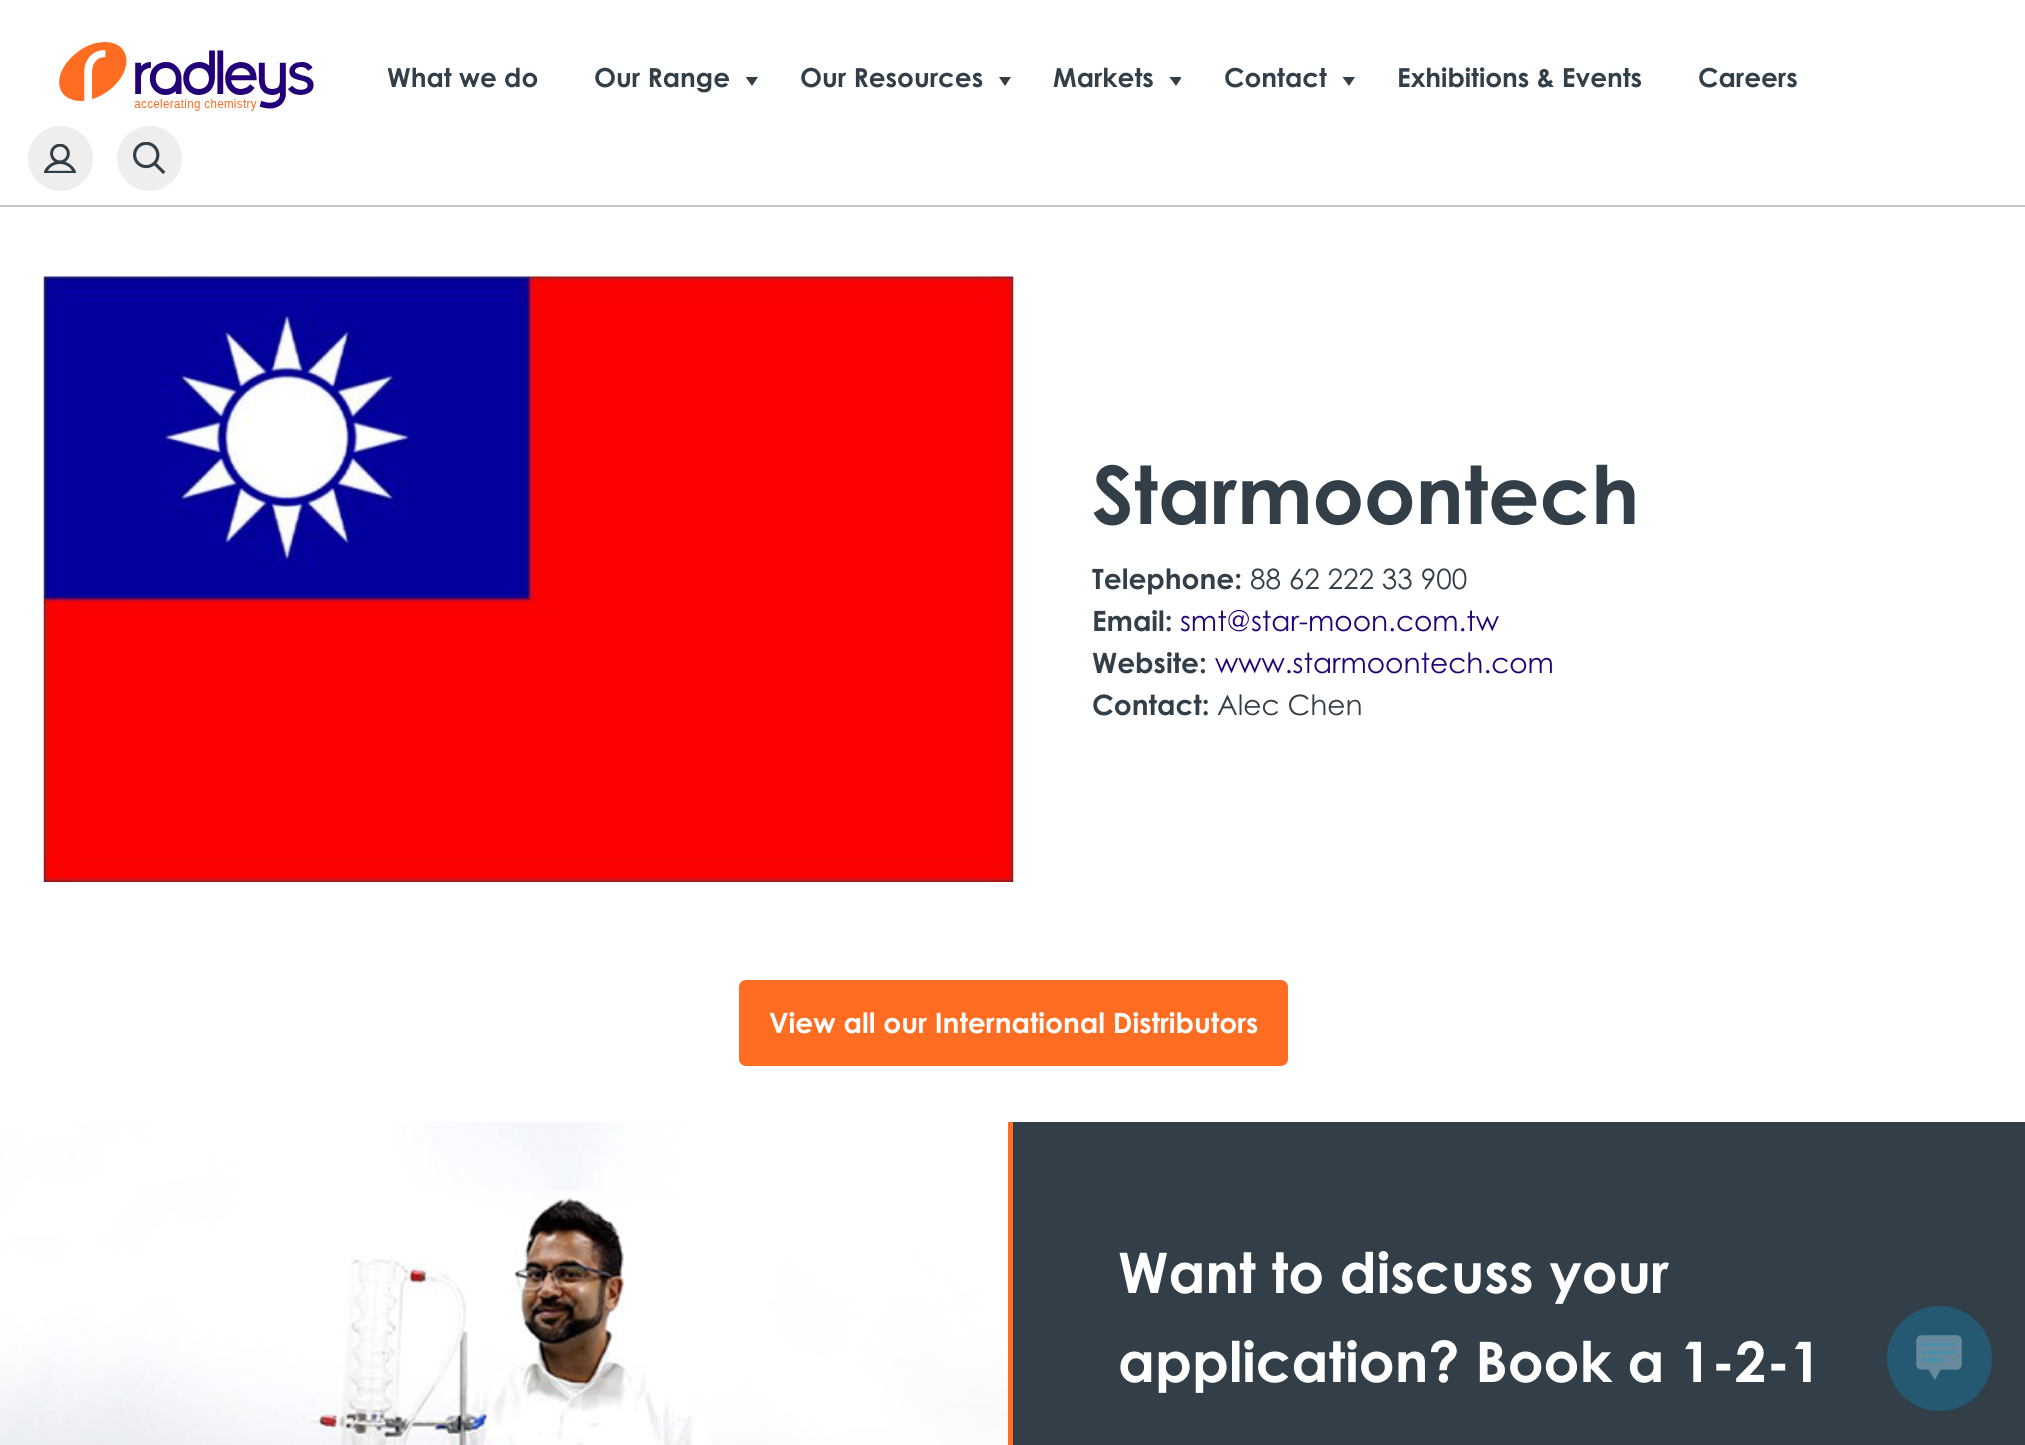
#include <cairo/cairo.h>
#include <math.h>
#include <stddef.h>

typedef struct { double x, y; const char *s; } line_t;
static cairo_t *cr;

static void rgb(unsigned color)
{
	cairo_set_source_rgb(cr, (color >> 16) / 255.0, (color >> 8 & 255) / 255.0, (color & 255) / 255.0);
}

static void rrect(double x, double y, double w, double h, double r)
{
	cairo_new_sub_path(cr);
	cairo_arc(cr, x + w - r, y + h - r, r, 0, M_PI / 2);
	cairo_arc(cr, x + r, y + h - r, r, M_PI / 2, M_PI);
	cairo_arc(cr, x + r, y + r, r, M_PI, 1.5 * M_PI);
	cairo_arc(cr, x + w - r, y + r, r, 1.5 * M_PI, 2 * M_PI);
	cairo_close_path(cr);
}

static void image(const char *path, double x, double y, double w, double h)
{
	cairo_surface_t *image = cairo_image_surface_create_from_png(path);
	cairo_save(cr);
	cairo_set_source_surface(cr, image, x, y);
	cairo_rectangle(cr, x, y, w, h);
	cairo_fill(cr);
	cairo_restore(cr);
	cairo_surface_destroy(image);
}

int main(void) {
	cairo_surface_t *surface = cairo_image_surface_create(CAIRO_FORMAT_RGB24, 2025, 1445);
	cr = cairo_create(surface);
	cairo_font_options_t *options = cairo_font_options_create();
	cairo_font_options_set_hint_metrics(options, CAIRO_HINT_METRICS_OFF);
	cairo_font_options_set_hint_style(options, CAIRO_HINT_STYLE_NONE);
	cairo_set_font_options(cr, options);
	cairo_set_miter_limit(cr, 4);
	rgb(0xffffff);
	cairo_paint(cr);
	rgb(0xc6c6c6);
	cairo_rectangle(cr, 0, 205, 2025, 2);
	cairo_fill(cr);
	image("img/1.png", 59, 42, 255, 69);
	rgb(0x333f48);
	cairo_new_path(cr);
	cairo_move_to(cr, 746, 77);
	cairo_line_to(cr, 746, 77.5);
	cairo_line_to(cr, 752, 86);
	cairo_line_to(cr, 758, 77);
	cairo_close_path(cr);
	cairo_fill(cr);
	cairo_new_path(cr);
	cairo_move_to(cr, 999, 77);
	cairo_line_to(cr, 1005, 86);
	cairo_line_to(cr, 1011, 77);
	cairo_close_path(cr);
	cairo_fill(cr);
	cairo_new_path(cr);
	cairo_move_to(cr, 1176, 86);
	cairo_line_to(cr, 1181, 78.5);
	cairo_line_to(cr, 1181, 77);
	cairo_line_to(cr, 1169.5, 77);
	cairo_close_path(cr);
	cairo_fill(cr);
	cairo_new_path(cr);
	cairo_move_to(cr, 1349, 86);
	cairo_line_to(cr, 1355, 77);
	cairo_line_to(cr, 1342.5, 77);
	cairo_close_path(cr);
	cairo_fill(cr);
	rgb(0xeeeeee);
	cairo_arc(cr, 60.5, 158.5, 32.5, 0, 2 * M_PI);
	cairo_fill(cr);
	image("img/2.png", 44, 144, 32, 29);
	cairo_arc(cr, 149.5, 158.5, 32.5, 0, 2 * M_PI);
	cairo_fill(cr);
	image("img/3.png", 133, 142, 33, 32);
	image("img/4.png", 43, 276, 971, 606);
	rgb(0xff6d22);
	rrect(740, 981, 547, 84, 6);
	cairo_fill_preserve(cr);
	cairo_stroke(cr);
	rgb(0x333f48);
	cairo_rectangle(cr, 1013, 1122, 1012, 323);
	cairo_fill(cr);
	rgb(0xff6d22);
	cairo_rectangle(cr, 1008, 1122, 5, 323);
	cairo_fill(cr);
	image("img/5.png", 0, 1122, 1008, 323);
	rgb(0x255972);
	cairo_arc(cr, 1939.5, 1358.5, 52.5, 0, 2 * M_PI);
	cairo_fill(cr);
	image("img/6.png", 1916, 1335, 46, 45);
	cairo_select_font_face(cr, "Century Gothic", CAIRO_FONT_SLANT_NORMAL, CAIRO_FONT_WEIGHT_BOLD);
	cairo_set_font_size(cr, 26.25);
	rgb(0x333f48);
	{
		static const line_t items[] = {
			{387, 87, "What we do"},
			{594, 87, "Our Range"},
			{800, 87, "Our Resources"},
			{1053, 87, "Markets"},
			{1224, 87, "Contact"},
			{1397, 87, "Exhibitions & Events"},
			{1698, 87, "Careers"},
		};
		for (size_t i = 0; i < sizeof items / sizeof *items; i++) {
			cairo_move_to(cr, items[i].x, items[i].y);
			cairo_show_text(cr, items[i].s);
		}
	}
	cairo_set_font_size(cr, 80.5);
	cairo_move_to(cr, 1092, 524);
	cairo_show_text(cr, "Starmoontech");
	cairo_set_font_size(cr, 28);
	cairo_move_to(cr, 1092, 589);
	cairo_show_text(cr, "Telephone:");
	cairo_select_font_face(cr, "Century Gothic", CAIRO_FONT_SLANT_NORMAL, CAIRO_FONT_WEIGHT_NORMAL);
	cairo_move_to(cr, 1250, 589);
	cairo_show_text(cr, "88 62 222 33 900");
	cairo_select_font_face(cr, "Century Gothic", CAIRO_FONT_SLANT_NORMAL, CAIRO_FONT_WEIGHT_BOLD);
	cairo_move_to(cr, 1092, 631);
	cairo_show_text(cr, "Email:");
	cairo_select_font_face(cr, "Century Gothic", CAIRO_FONT_SLANT_NORMAL, CAIRO_FONT_WEIGHT_NORMAL);
	rgb(0x240078);
	cairo_move_to(cr, 1180, 631);
	cairo_show_text(cr, "smt@star-moon.com.tw");
	cairo_select_font_face(cr, "Century Gothic", CAIRO_FONT_SLANT_NORMAL, CAIRO_FONT_WEIGHT_BOLD);
	rgb(0x333f48);
	cairo_move_to(cr, 1092, 673);
	cairo_show_text(cr, "Website:");
	cairo_select_font_face(cr, "Century Gothic", CAIRO_FONT_SLANT_NORMAL, CAIRO_FONT_WEIGHT_NORMAL);
	rgb(0x240078);
	cairo_move_to(cr, 1215, 673);
	cairo_show_text(cr, "www.starmoontech.com");
	cairo_select_font_face(cr, "Century Gothic", CAIRO_FONT_SLANT_NORMAL, CAIRO_FONT_WEIGHT_BOLD);
	rgb(0x333f48);
	cairo_move_to(cr, 1092, 715);
	cairo_show_text(cr, "Contact:");
	cairo_select_font_face(cr, "Century Gothic", CAIRO_FONT_SLANT_NORMAL, CAIRO_FONT_WEIGHT_NORMAL);
	cairo_move_to(cr, 1217, 715);
	cairo_show_text(cr, "Alec Chen");
	cairo_select_font_face(cr, "Century Gothic", CAIRO_FONT_SLANT_NORMAL, CAIRO_FONT_WEIGHT_BOLD);
	rgb(0xffffff);
	cairo_move_to(cr, 769, 1033);
	cairo_show_text(cr, "View all our International Distributors");
	cairo_set_font_size(cr, 56);
	cairo_move_to(cr, 1118, 1293);
	cairo_show_text(cr, "Want to discuss your");
	cairo_move_to(cr, 1118, 1382);
	cairo_show_text(cr, "application? Book a 1-2-1");
	cairo_surface_write_to_png(surface, "page.png");
	cairo_font_options_destroy(options);
	cairo_destroy(cr);
	cairo_surface_destroy(surface);
	return 0;
}
